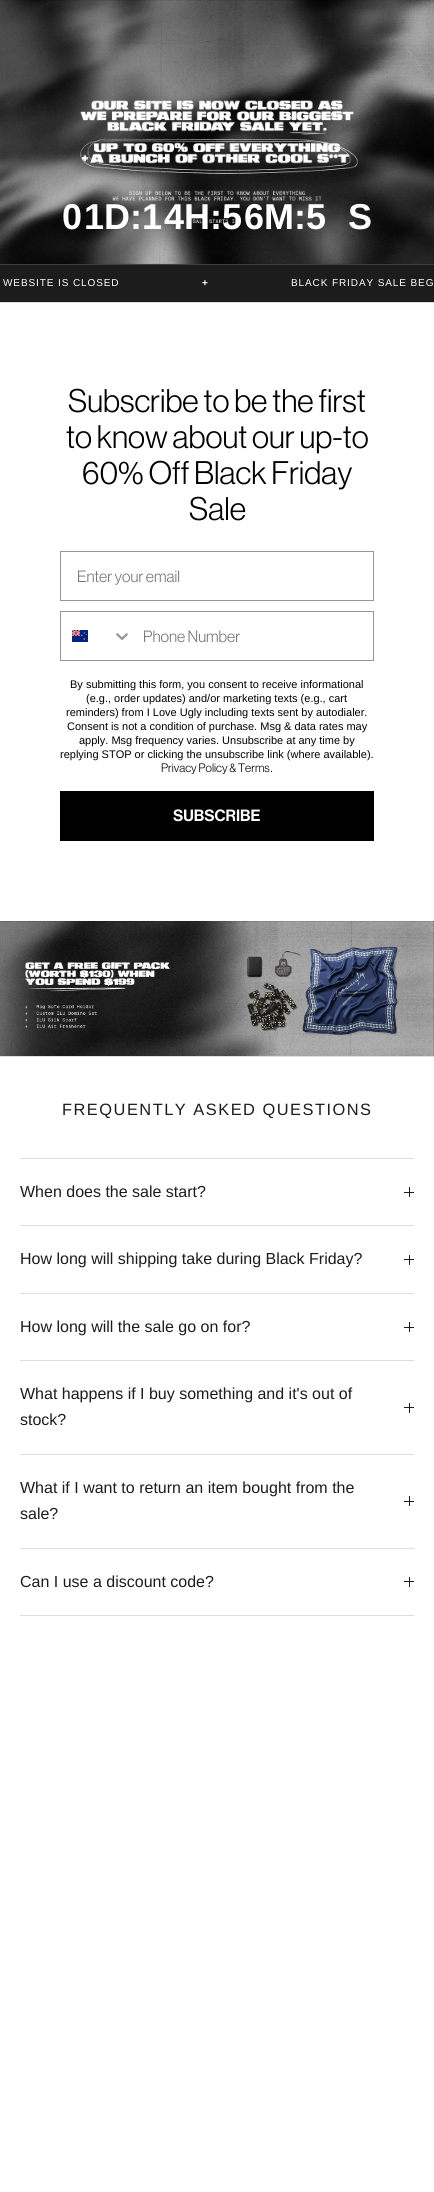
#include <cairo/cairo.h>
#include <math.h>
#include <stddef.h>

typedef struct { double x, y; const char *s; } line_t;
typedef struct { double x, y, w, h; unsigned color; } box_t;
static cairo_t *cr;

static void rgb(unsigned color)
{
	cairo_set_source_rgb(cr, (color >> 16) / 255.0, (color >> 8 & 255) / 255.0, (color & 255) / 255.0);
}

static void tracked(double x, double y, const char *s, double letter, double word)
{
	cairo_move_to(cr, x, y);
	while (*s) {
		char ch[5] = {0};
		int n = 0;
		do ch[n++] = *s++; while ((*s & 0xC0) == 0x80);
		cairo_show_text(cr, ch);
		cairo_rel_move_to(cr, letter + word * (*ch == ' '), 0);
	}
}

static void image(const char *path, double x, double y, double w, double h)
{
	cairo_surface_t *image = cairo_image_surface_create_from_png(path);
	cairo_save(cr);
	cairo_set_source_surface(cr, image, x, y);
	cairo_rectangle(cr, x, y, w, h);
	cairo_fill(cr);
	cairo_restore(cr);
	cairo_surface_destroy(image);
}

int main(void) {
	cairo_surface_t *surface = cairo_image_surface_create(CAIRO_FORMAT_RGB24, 434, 2192);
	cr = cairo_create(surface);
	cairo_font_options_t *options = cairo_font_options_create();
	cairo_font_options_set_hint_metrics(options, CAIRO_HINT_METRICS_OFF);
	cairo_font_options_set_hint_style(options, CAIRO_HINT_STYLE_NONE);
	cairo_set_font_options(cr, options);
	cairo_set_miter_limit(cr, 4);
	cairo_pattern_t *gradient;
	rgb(0xffffff);
	cairo_paint(cr);
	rgb(0x000000);
	cairo_rectangle(cr, 0, 0, 434, 264);
	cairo_fill(cr);
	image("img/1.png", 0, 0, 434, 264);
	{
		static const box_t items[] = {
			{0, 265, 434, 37, 0x1c1c1c},
			{0, 264, 434, 1, 0x3e3e3e},
			{0, 302, 434, 1, 0xdddddd},
		};
		for (size_t i = 0; i < sizeof items / sizeof *items; i++) {
			rgb(items[i].color);
			cairo_rectangle(cr, items[i].x, items[i].y, items[i].w, items[i].h);
			cairo_fill(cr);
		}
	}
	cairo_rectangle(cr, 60.5, 551.5, 313, 49);
	rgb(0x949596);
	cairo_set_line_width(cr, 1);
	cairo_stroke(cr);
	cairo_rectangle(cr, 60.5, 611.5, 313, 49);
	cairo_stroke(cr);
	image("img/2.png", 72, 630, 16, 12);
	image("img/3.png", 116, 633, 12, 7);
	rgb(0x000000);
	cairo_rectangle(cr, 60, 791, 314, 50);
	cairo_fill(cr);
	gradient = cairo_pattern_create_linear(217, 921, 217, 1056);
	cairo_pattern_add_color_stop_rgba(gradient, 0, 0.043, 0.043, 0.043, 1);
	cairo_pattern_add_color_stop_rgba(gradient, 1, 0.012, 0.012, 0.012, 1);
	cairo_set_source(cr, gradient);
	cairo_pattern_destroy(gradient);
	cairo_rectangle(cr, 0, 921, 434, 135);
	cairo_fill(cr);
	image("img/4.png", 0, 921, 434, 135);
	{
		static const box_t items[] = {
			{0, 1056, 434, 1, 0xdddddd},
			{20, 1158, 394, 1, 0xdddddd},
			{20, 1225, 394, 1, 0xdddddd},
			{409, 1187, 1, 10, 0x1c1c1c},
			{404, 1192, 10, 1, 0x1c1c1c},
			{20, 1293, 394, 1, 0xdddddd},
			{409, 1255, 1, 10, 0x1c1c1c},
			{404, 1259, 10, 1, 0x1c1c1c},
			{20, 1360, 394, 1, 0xdddddd},
			{409, 1322, 1, 10, 0x1c1c1c},
			{404, 1327, 10, 1, 0x1c1c1c},
			{20, 1454, 394, 1, 0xdddddd},
			{409, 1403, 1, 10, 0x1c1c1c},
			{404, 1407, 10, 1, 0x1c1c1c},
			{20, 1548, 394, 1, 0xdddddd},
			{409, 1496, 1, 10, 0x1c1c1c},
			{404, 1501, 10, 1, 0x1c1c1c},
			{20, 1615, 394, 1, 0xdddddd},
			{409, 1577, 1, 10, 0x1c1c1c},
			{404, 1581, 10, 1, 0x1c1c1c},
		};
		for (size_t i = 0; i < sizeof items / sizeof *items; i++) {
			rgb(items[i].color);
			cairo_rectangle(cr, items[i].x, items[i].y, items[i].w, items[i].h);
			cairo_fill(cr);
		}
	}
	cairo_select_font_face(cr, "Liberation Sans", CAIRO_FONT_SLANT_NORMAL, CAIRO_FONT_WEIGHT_BOLD);
	cairo_set_font_size(cr, 36);
	rgb(0xffffff);
	{
		static const line_t items[] = {
			{62, 229, "0"},
			{84, 229, "1D:1"},
			{164, 229, "4H:5"},
			{244, 229, "6M:5"},
			{348, 229, "S"},
		};
		for (size_t i = 0; i < sizeof items / sizeof *items; i++) {
			cairo_move_to(cr, items[i].x, items[i].y);
			cairo_show_text(cr, items[i].s);
		}
	}
	cairo_select_font_face(cr, "Liberation Sans", CAIRO_FONT_SLANT_NORMAL, CAIRO_FONT_WEIGHT_NORMAL);
	cairo_set_font_size(cr, 10);
	tracked(3, 286, "WEBSITE IS CLOSED", 0.9, 0);
	cairo_select_font_face(cr, "Liberation Sans", CAIRO_FONT_SLANT_NORMAL, CAIRO_FONT_WEIGHT_BOLD);
	tracked(202, 286, "+", 0.9, 0);
	cairo_select_font_face(cr, "Liberation Sans", CAIRO_FONT_SLANT_NORMAL, CAIRO_FONT_WEIGHT_NORMAL);
	tracked(291, 286, "BLACK FRIDAY SALE BEG", 0.9, 0);
	cairo_select_font_face(cr, "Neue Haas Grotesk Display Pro", CAIRO_FONT_SLANT_NORMAL, CAIRO_FONT_WEIGHT_NORMAL);
	cairo_set_font_size(cr, 32);
	rgb(0x000000);
	{
		static const line_t items[] = {
			{68, 412, "Subscribe to be the first"},
			{66, 448, "to know about our up-to"},
			{82, 484, "60% Off Black Friday"},
			{189, 520, "Sale"},
		};
		for (size_t i = 0; i < sizeof items / sizeof *items; i++) {
			cairo_move_to(cr, items[i].x, items[i].y);
			cairo_show_text(cr, items[i].s);
		}
	}
	cairo_set_font_size(cr, 16);
	rgb(0x767676);
	cairo_move_to(cr, 77, 582);
	cairo_show_text(cr, "Enter your email");
	cairo_move_to(cr, 143, 642);
	cairo_show_text(cr, "Phone Number");
	cairo_select_font_face(cr, "Liberation Sans", CAIRO_FONT_SLANT_NORMAL, CAIRO_FONT_WEIGHT_NORMAL);
	cairo_set_font_size(cr, 11);
	rgb(0x000000);
	{
		static const line_t items[] = {
			{70, 688, "By submitting this form, you consent to receive informational"},
			{86, 702, "(e.g., order updates) and/or marketing texts (e.g., cart"},
			{66, 716, "reminders) from I Love Ugly including texts sent by autodialer."},
			{67, 730, "Consent is not a condition of purchase. Msg & data rates may"},
			{79, 744, "apply. Msg frequency varies. Unsubscribe at any time by"},
			{60, 758, "replying STOP or clicking the unsubscribe link (where available)."},
		};
		for (size_t i = 0; i < sizeof items / sizeof *items; i++) {
			cairo_move_to(cr, items[i].x, items[i].y);
			cairo_show_text(cr, items[i].s);
		}
	}
	cairo_select_font_face(cr, "Neue Haas Grotesk Display Pro", CAIRO_FONT_SLANT_NORMAL, CAIRO_FONT_WEIGHT_NORMAL);
	cairo_set_font_size(cr, 12);
	cairo_move_to(cr, 161, 772);
	cairo_show_text(cr, "Privacy Policy & Terms");
	cairo_select_font_face(cr, "Liberation Sans", CAIRO_FONT_SLANT_NORMAL, CAIRO_FONT_WEIGHT_NORMAL);
	cairo_set_font_size(cr, 11);
	cairo_move_to(cr, 270, 772);
	cairo_show_text(cr, ".");
	cairo_select_font_face(cr, "Neue Haas Grotesk Display Pro Medium", CAIRO_FONT_SLANT_NORMAL, CAIRO_FONT_WEIGHT_NORMAL);
	cairo_set_font_size(cr, 16);
	rgb(0xffffff);
	cairo_move_to(cr, 173, 821);
	cairo_show_text(cr, "SUBSCRIBE");
	cairo_select_font_face(cr, "Liberation Sans", CAIRO_FONT_SLANT_NORMAL, CAIRO_FONT_WEIGHT_NORMAL);
	cairo_set_font_size(cr, 16.4);
	rgb(0x1c1c1c);
	tracked(62, 1115, "FREQUENTLY ASKED QUESTIONS", 1.5, 0);
	cairo_set_font_size(cr, 16);
	{
		static const line_t items[] = {
			{20, 1197, "When does the sale start?"},
			{20, 1264, "How long will shipping take during Black Friday?"},
			{20, 1332, "How long will the sale go on for?"},
			{20, 1399, "What happens if I buy something and it's out of"},
			{20, 1425, "stock?"},
			{20, 1493, "What if I want to return an item bought from the"},
			{20, 1519, "sale?"},
			{20, 1587, "Can I use a discount code?"},
		};
		for (size_t i = 0; i < sizeof items / sizeof *items; i++) {
			cairo_move_to(cr, items[i].x, items[i].y);
			cairo_show_text(cr, items[i].s);
		}
	}
	cairo_surface_write_to_png(surface, "page.png");
	cairo_font_options_destroy(options);
	cairo_destroy(cr);
	cairo_surface_destroy(surface);
	return 0;
}
